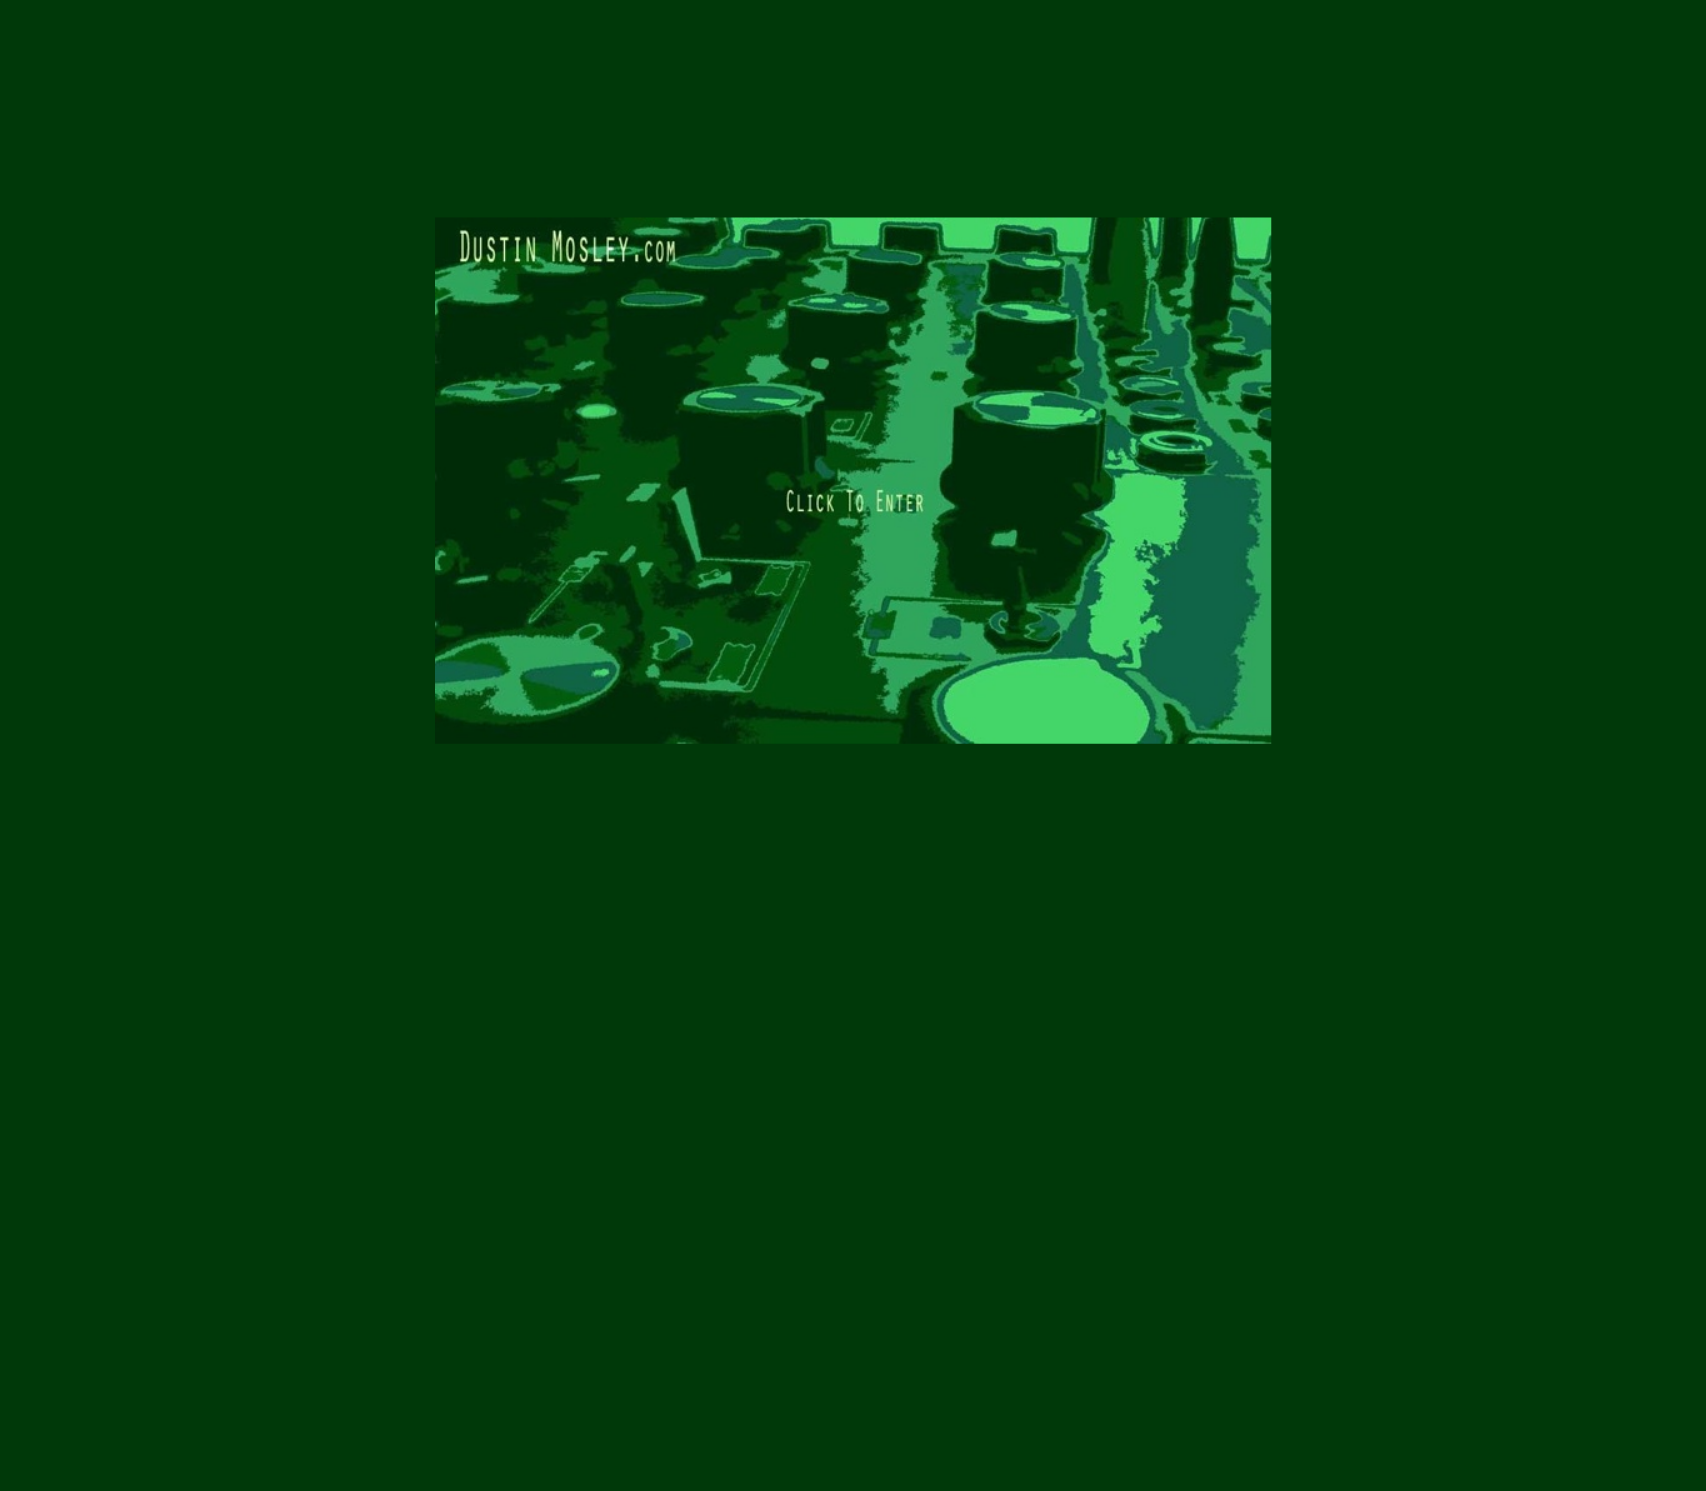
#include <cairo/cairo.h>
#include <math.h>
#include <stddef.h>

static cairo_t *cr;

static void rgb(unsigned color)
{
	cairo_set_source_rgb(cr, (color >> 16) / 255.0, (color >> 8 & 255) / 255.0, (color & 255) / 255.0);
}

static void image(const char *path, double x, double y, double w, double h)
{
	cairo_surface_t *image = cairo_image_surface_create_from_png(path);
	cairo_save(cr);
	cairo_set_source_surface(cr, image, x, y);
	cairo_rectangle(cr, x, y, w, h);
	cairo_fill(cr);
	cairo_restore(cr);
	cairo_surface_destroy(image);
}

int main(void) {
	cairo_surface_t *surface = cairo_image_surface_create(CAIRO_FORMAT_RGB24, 1706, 1491);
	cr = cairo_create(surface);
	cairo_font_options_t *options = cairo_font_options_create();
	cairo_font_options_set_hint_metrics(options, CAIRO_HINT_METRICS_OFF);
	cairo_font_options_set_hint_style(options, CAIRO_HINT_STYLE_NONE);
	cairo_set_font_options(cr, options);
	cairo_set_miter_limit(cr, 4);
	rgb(0x003909);
	cairo_paint(cr);
	image("img/1.png", 435, 217, 837, 527);
	cairo_surface_write_to_png(surface, "page.png");
	cairo_font_options_destroy(options);
	cairo_destroy(cr);
	cairo_surface_destroy(surface);
	return 0;
}
